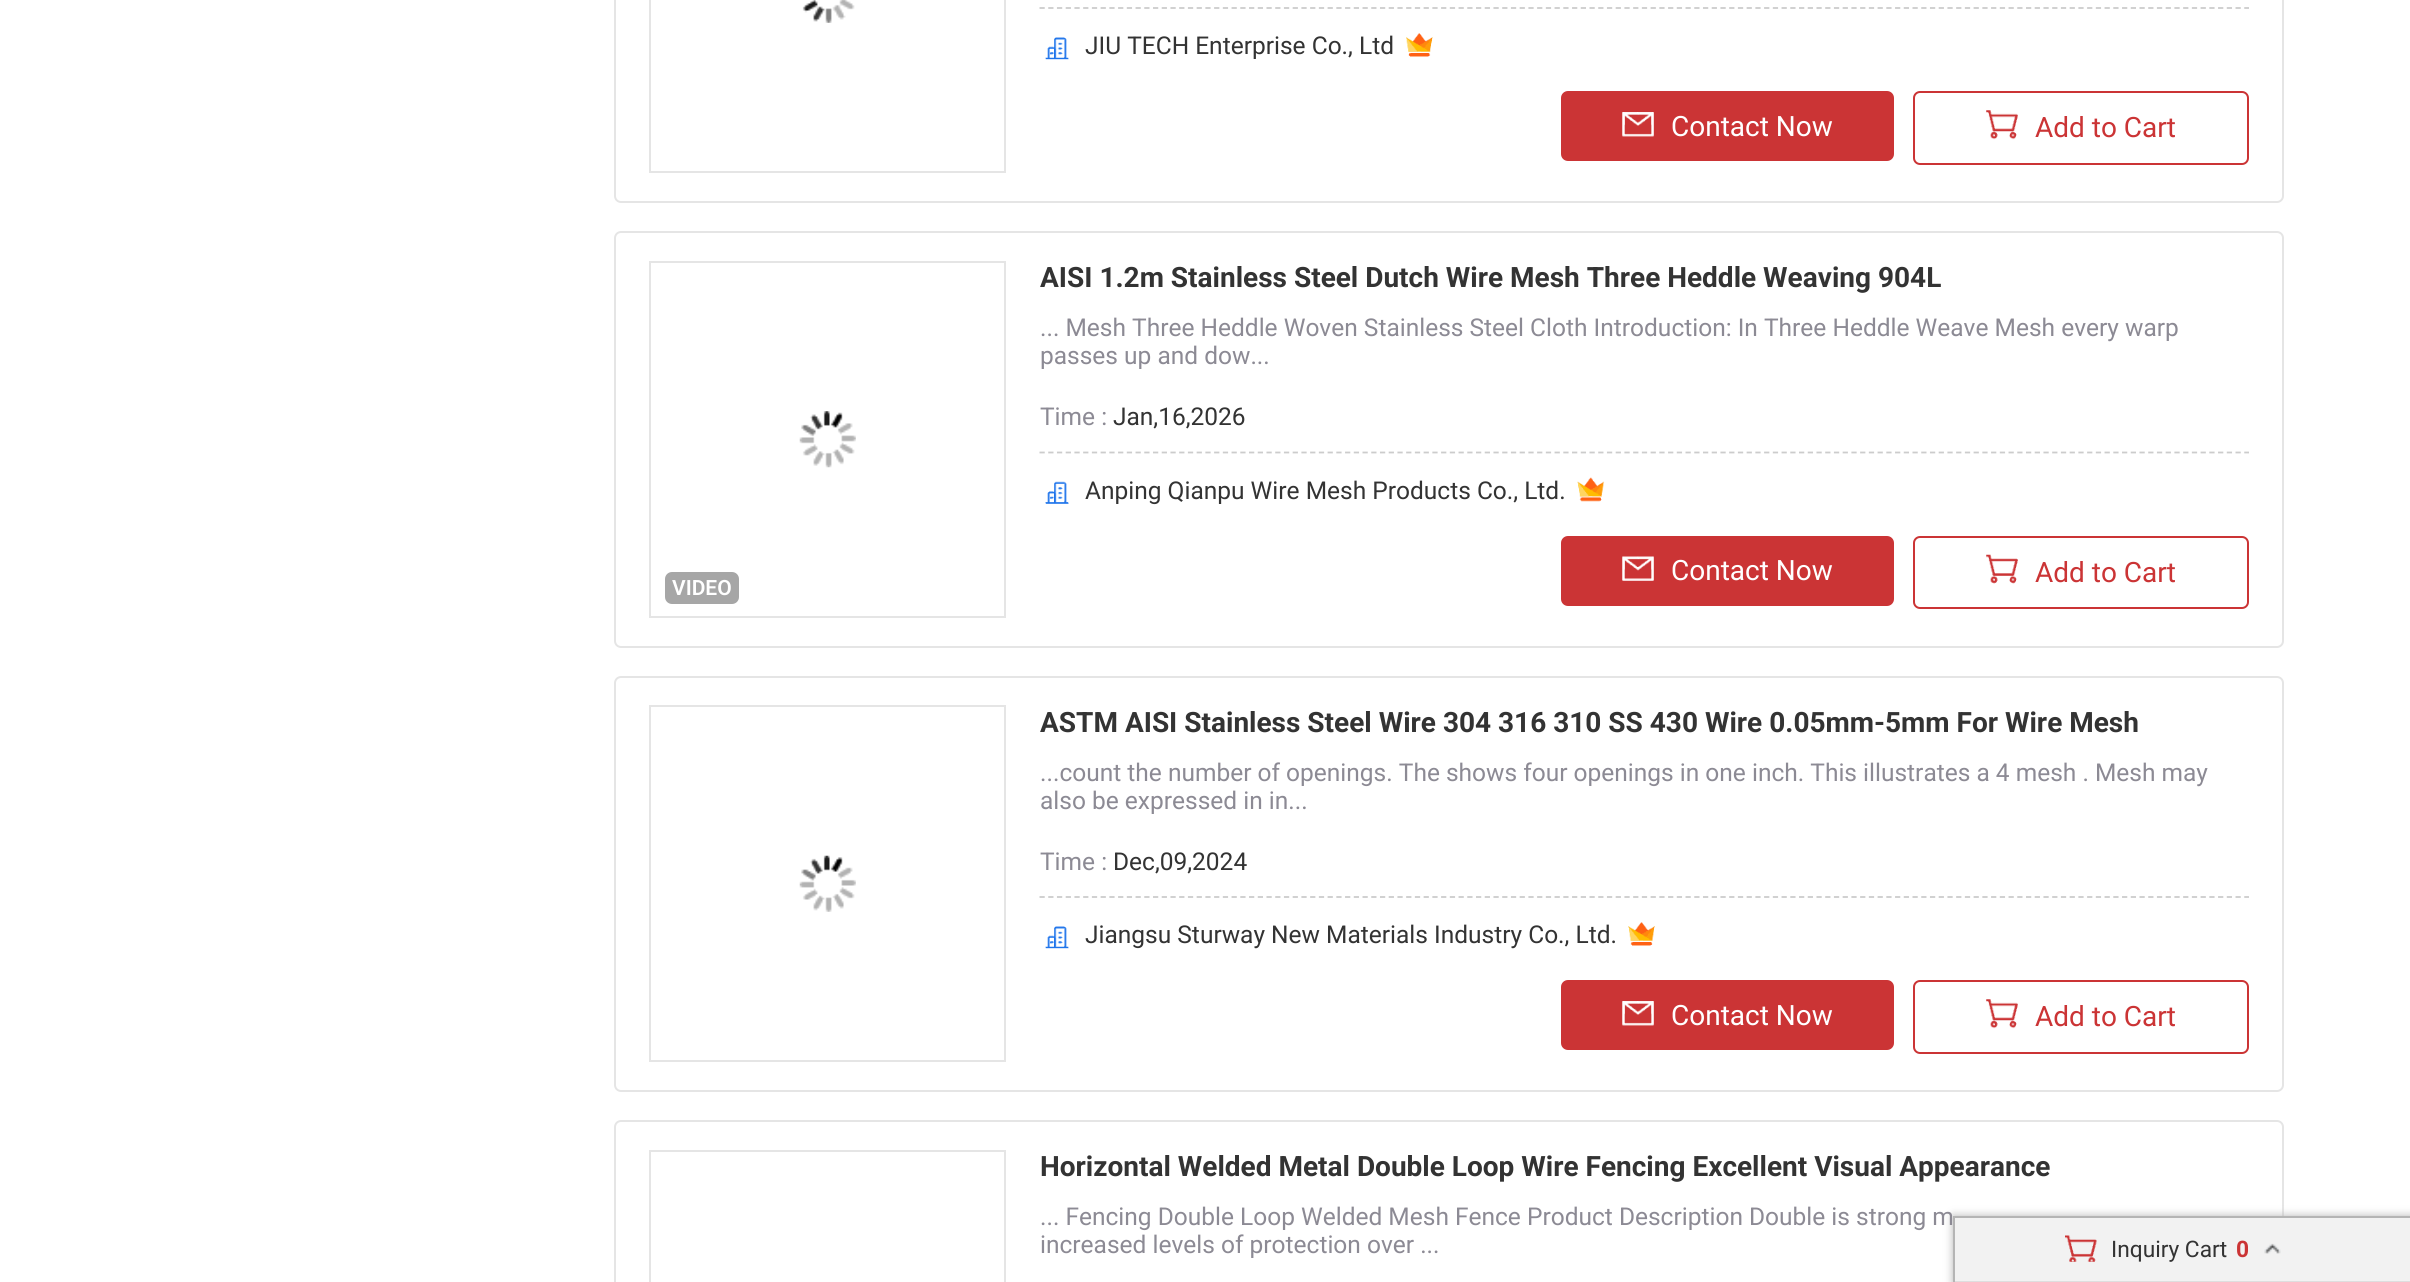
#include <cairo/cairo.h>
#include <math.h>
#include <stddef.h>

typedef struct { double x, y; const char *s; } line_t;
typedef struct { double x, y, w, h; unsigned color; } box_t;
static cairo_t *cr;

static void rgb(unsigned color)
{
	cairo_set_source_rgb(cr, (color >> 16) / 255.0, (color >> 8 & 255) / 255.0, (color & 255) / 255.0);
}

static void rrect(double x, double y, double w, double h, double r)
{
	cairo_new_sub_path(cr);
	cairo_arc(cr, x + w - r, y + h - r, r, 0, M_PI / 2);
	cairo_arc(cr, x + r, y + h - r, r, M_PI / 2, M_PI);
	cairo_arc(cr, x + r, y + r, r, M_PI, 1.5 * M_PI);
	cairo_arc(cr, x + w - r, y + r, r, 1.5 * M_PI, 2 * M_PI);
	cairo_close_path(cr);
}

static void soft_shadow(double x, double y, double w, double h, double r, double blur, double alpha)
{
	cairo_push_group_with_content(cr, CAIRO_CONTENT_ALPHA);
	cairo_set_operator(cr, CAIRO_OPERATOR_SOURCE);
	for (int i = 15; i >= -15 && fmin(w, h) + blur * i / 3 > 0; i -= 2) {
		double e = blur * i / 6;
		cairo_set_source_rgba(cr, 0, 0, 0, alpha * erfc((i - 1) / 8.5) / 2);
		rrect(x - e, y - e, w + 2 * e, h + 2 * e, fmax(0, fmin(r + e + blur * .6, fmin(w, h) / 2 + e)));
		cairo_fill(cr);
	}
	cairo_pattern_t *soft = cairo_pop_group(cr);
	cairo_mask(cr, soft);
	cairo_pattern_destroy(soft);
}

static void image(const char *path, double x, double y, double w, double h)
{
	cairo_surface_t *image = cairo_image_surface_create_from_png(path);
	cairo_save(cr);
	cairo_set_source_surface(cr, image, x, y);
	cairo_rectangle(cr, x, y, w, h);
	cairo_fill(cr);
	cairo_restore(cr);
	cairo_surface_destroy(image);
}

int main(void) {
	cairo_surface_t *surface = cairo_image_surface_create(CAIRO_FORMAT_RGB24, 2410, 1282);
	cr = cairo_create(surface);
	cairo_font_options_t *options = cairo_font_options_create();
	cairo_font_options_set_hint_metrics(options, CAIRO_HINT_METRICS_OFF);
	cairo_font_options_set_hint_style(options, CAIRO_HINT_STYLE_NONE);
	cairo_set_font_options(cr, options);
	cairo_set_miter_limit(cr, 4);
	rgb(0xffffff);
	cairo_paint(cr);
	rrect(615, -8, 1668, 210, 6);
	rgb(0xe5e5e5);
	cairo_stroke(cr);
	cairo_rectangle(cr, 650, -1, 355, 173);
	cairo_stroke(cr);
	image("img/1.png", 802, 0, 53, 23);
	cairo_new_path(cr);
	cairo_move_to(cr, 1039.5, 8);
	cairo_line_to(cr, 2249, 8);
	rgb(0xcccccc);
	cairo_set_line_width(cr, 1.8);
	cairo_set_dash(cr, (double[]){5.25, 3.48}, 2, 0);
	cairo_stroke(cr);
	image("img/2.png", 1045, 37, 24, 23);
	image("img/3.png", 1406, 33, 27, 24);
	rgb(0xcb3435);
	rrect(1561, 91, 333, 70, 7);
	cairo_fill(cr);
	image("img/4.png", 1622, 112, 32, 25);
	rrect(1914, 92, 334, 72, 6);
	cairo_set_line_width(cr, 2);
	cairo_set_dash(cr, NULL, 0, 0);
	cairo_stroke(cr);
	image("img/5.png", 1986, 110, 32, 30);
	rrect(615, 232, 1668, 415, 6);
	rgb(0xe5e5e5);
	cairo_stroke(cr);
	cairo_new_path(cr);
	cairo_move_to(cr, 1039.5, 452.5);
	cairo_line_to(cr, 2249, 452.5);
	rgb(0xcccccc);
	cairo_set_line_width(cr, 1.8);
	cairo_set_dash(cr, (double[]){5.25, 3.48}, 2, 0);
	cairo_stroke(cr);
	image("img/6.png", 1045, 481, 24, 23);
	image("img/7.png", 1577, 477, 28, 25);
	rgb(0xcb3435);
	rrect(1561, 536, 333, 70, 7);
	cairo_fill(cr);
	image("img/8.png", 1622, 556, 32, 25);
	rrect(1914, 537, 334, 71, 6);
	cairo_set_line_width(cr, 2);
	cairo_set_dash(cr, NULL, 0, 0);
	cairo_stroke(cr);
	image("img/9.png", 1986, 554, 32, 30);
	cairo_rectangle(cr, 650, 262, 355, 355);
	rgb(0xe5e5e5);
	cairo_stroke(cr);
	image("img/10.png", 799, 411, 57, 57);
	rgb(0xa6a6a6);
	rrect(665, 572, 74, 32, 7);
	cairo_fill(cr);
	rrect(615, 677, 1668, 414, 6);
	rgb(0xe5e5e5);
	cairo_stroke(cr);
	cairo_rectangle(cr, 650, 706, 355, 355);
	cairo_stroke(cr);
	image("img/11.png", 799, 855, 57, 57);
	cairo_new_path(cr);
	cairo_move_to(cr, 1039.5, 897);
	cairo_line_to(cr, 2249, 897);
	rgb(0xcccccc);
	cairo_set_line_width(cr, 1.8);
	cairo_set_dash(cr, (double[]){5.25, 3.48}, 2, 0);
	cairo_stroke(cr);
	image("img/2.png", 1045, 926, 24, 23);
	image("img/12.png", 1628, 922, 27, 24);
	rgb(0xcb3435);
	rrect(1561, 980, 333, 70, 7);
	cairo_fill(cr);
	image("img/4.png", 1622, 1001, 32, 25);
	rrect(1914, 981, 334, 72, 6);
	cairo_set_line_width(cr, 2);
	cairo_set_dash(cr, NULL, 0, 0);
	cairo_stroke(cr);
	image("img/5.png", 1986, 999, 32, 30);
	rrect(615, 1121, 1668, 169, 6);
	rgb(0xe5e5e5);
	cairo_stroke(cr);
	cairo_rectangle(cr, 650, 1151, 355, 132);
	cairo_stroke(cr);
	rgb(0xb5b5b5);
	soft_shadow(1953, 1216, 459, 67, 0, 4.5, 1);
	{
		static const box_t items[] = {
			{1953, 1216, 457, 2, 0xb5b5b5},
			{1953, 1216, 2, 66, 0xb5b5b5},
			{1955, 1218, 455, 63, 0xf2f2f2},
			{1955, 1281, 455, 1, 0xdedede},
		};
		for (size_t i = 0; i < sizeof items / sizeof *items; i++) {
			rgb(items[i].color);
			cairo_rectangle(cr, items[i].x, items[i].y, items[i].w, items[i].h);
			cairo_fill(cr);
		}
	}
	image("img/13.png", 2065, 1235, 32, 27);
	image("img/14.png", 2264, 1243, 17, 11);
	cairo_select_font_face(cr, "Roboto", CAIRO_FONT_SLANT_NORMAL, CAIRO_FONT_WEIGHT_NORMAL);
	cairo_set_font_size(cr, 24.5);
	rgb(0x333333);
	cairo_move_to(cr, 1085, 54);
	cairo_show_text(cr, "JIU TECH Enterprise Co., Ltd");
	cairo_set_font_size(cr, 28);
	rgb(0xffffff);
	cairo_move_to(cr, 1671, 136);
	cairo_show_text(cr, "Contact Now");
	rgb(0xcb3435);
	cairo_move_to(cr, 2035, 137);
	cairo_show_text(cr, "Add to Cart");
	cairo_select_font_face(cr, "Roboto", CAIRO_FONT_SLANT_NORMAL, CAIRO_FONT_WEIGHT_BOLD);
	rgb(0x333333);
	cairo_move_to(cr, 1040, 287);
	cairo_show_text(cr, "AISI 1.2m Stainless Steel Dutch Wire Mesh Three Heddle Weaving 904L");
	cairo_select_font_face(cr, "Roboto", CAIRO_FONT_SLANT_NORMAL, CAIRO_FONT_WEIGHT_NORMAL);
	cairo_set_font_size(cr, 24.5);
	rgb(0x8c8a94);
	{
		static const line_t items[] = {
			{1040, 336, "... Mesh Three Heddle Woven Stainless Steel Cloth Introduction: In Three Heddle Weave Mesh every warp"},
			{1040, 364, "passes up and dow..."},
			{1040, 425, "Time :"},
		};
		for (size_t i = 0; i < sizeof items / sizeof *items; i++) {
			cairo_move_to(cr, items[i].x, items[i].y);
			cairo_show_text(cr, items[i].s);
		}
	}
	rgb(0x333333);
	cairo_move_to(cr, 1113, 425);
	cairo_show_text(cr, "Jan,16,2026");
	cairo_move_to(cr, 1085, 499);
	cairo_show_text(cr, "Anping Qianpu Wire Mesh Products Co., Ltd.");
	cairo_set_font_size(cr, 28);
	rgb(0xffffff);
	cairo_move_to(cr, 1671, 580);
	cairo_show_text(cr, "Contact Now");
	rgb(0xcb3435);
	cairo_move_to(cr, 2035, 582);
	cairo_show_text(cr, "Add to Cart");
	cairo_select_font_face(cr, "Roboto SemiBold", CAIRO_FONT_SLANT_NORMAL, CAIRO_FONT_WEIGHT_NORMAL);
	cairo_set_font_size(cr, 21);
	rgb(0xffffff);
	cairo_move_to(cr, 672, 595);
	cairo_show_text(cr, "VIDEO");
	cairo_select_font_face(cr, "Roboto", CAIRO_FONT_SLANT_NORMAL, CAIRO_FONT_WEIGHT_BOLD);
	cairo_set_font_size(cr, 28);
	rgb(0x333333);
	cairo_move_to(cr, 1040, 732);
	cairo_show_text(cr, "ASTM AISI Stainless Steel Wire 304 316 310 SS 430 Wire 0.05mm-5mm For Wire Mesh");
	cairo_select_font_face(cr, "Roboto", CAIRO_FONT_SLANT_NORMAL, CAIRO_FONT_WEIGHT_NORMAL);
	cairo_set_font_size(cr, 24.5);
	rgb(0x8c8a94);
	{
		static const line_t items[] = {
			{1040, 781, "...count the number of openings. The shows four openings in one inch. This illustrates a 4 mesh . Mesh may"},
			{1040, 809, "also be expressed in in..."},
			{1040, 870, "Time :"},
		};
		for (size_t i = 0; i < sizeof items / sizeof *items; i++) {
			cairo_move_to(cr, items[i].x, items[i].y);
			cairo_show_text(cr, items[i].s);
		}
	}
	rgb(0x333333);
	cairo_move_to(cr, 1113, 870);
	cairo_show_text(cr, "Dec,09,2024");
	cairo_move_to(cr, 1085, 943);
	cairo_show_text(cr, "Jiangsu Sturway New Materials Industry Co., Ltd.");
	cairo_set_font_size(cr, 28);
	rgb(0xffffff);
	cairo_move_to(cr, 1671, 1025);
	cairo_show_text(cr, "Contact Now");
	rgb(0xcb3435);
	cairo_move_to(cr, 2035, 1026);
	cairo_show_text(cr, "Add to Cart");
	cairo_select_font_face(cr, "Roboto", CAIRO_FONT_SLANT_NORMAL, CAIRO_FONT_WEIGHT_BOLD);
	rgb(0x333333);
	cairo_move_to(cr, 1040, 1176);
	cairo_show_text(cr, "Horizontal Welded Metal Double Loop Wire Fencing Excellent Visual Appearance");
	cairo_select_font_face(cr, "Roboto", CAIRO_FONT_SLANT_NORMAL, CAIRO_FONT_WEIGHT_NORMAL);
	cairo_set_font_size(cr, 24.5);
	rgb(0x8c8a94);
	cairo_move_to(cr, 1040, 1225);
	cairo_show_text(cr, "... Fencing Double Loop Welded Mesh Fence Product Description Double is strong m");
	cairo_move_to(cr, 1040, 1253);
	cairo_show_text(cr, "increased levels of protection over ...");
	cairo_set_font_size(cr, 22.75);
	rgb(0x333333);
	cairo_move_to(cr, 2111, 1257);
	cairo_show_text(cr, "Inquiry Cart");
	cairo_select_font_face(cr, "Roboto", CAIRO_FONT_SLANT_NORMAL, CAIRO_FONT_WEIGHT_BOLD);
	rgb(0xcb3435);
	cairo_move_to(cr, 2236, 1257);
	cairo_show_text(cr, "0");
	cairo_surface_write_to_png(surface, "page.png");
	cairo_font_options_destroy(options);
	cairo_destroy(cr);
	cairo_surface_destroy(surface);
	return 0;
}
